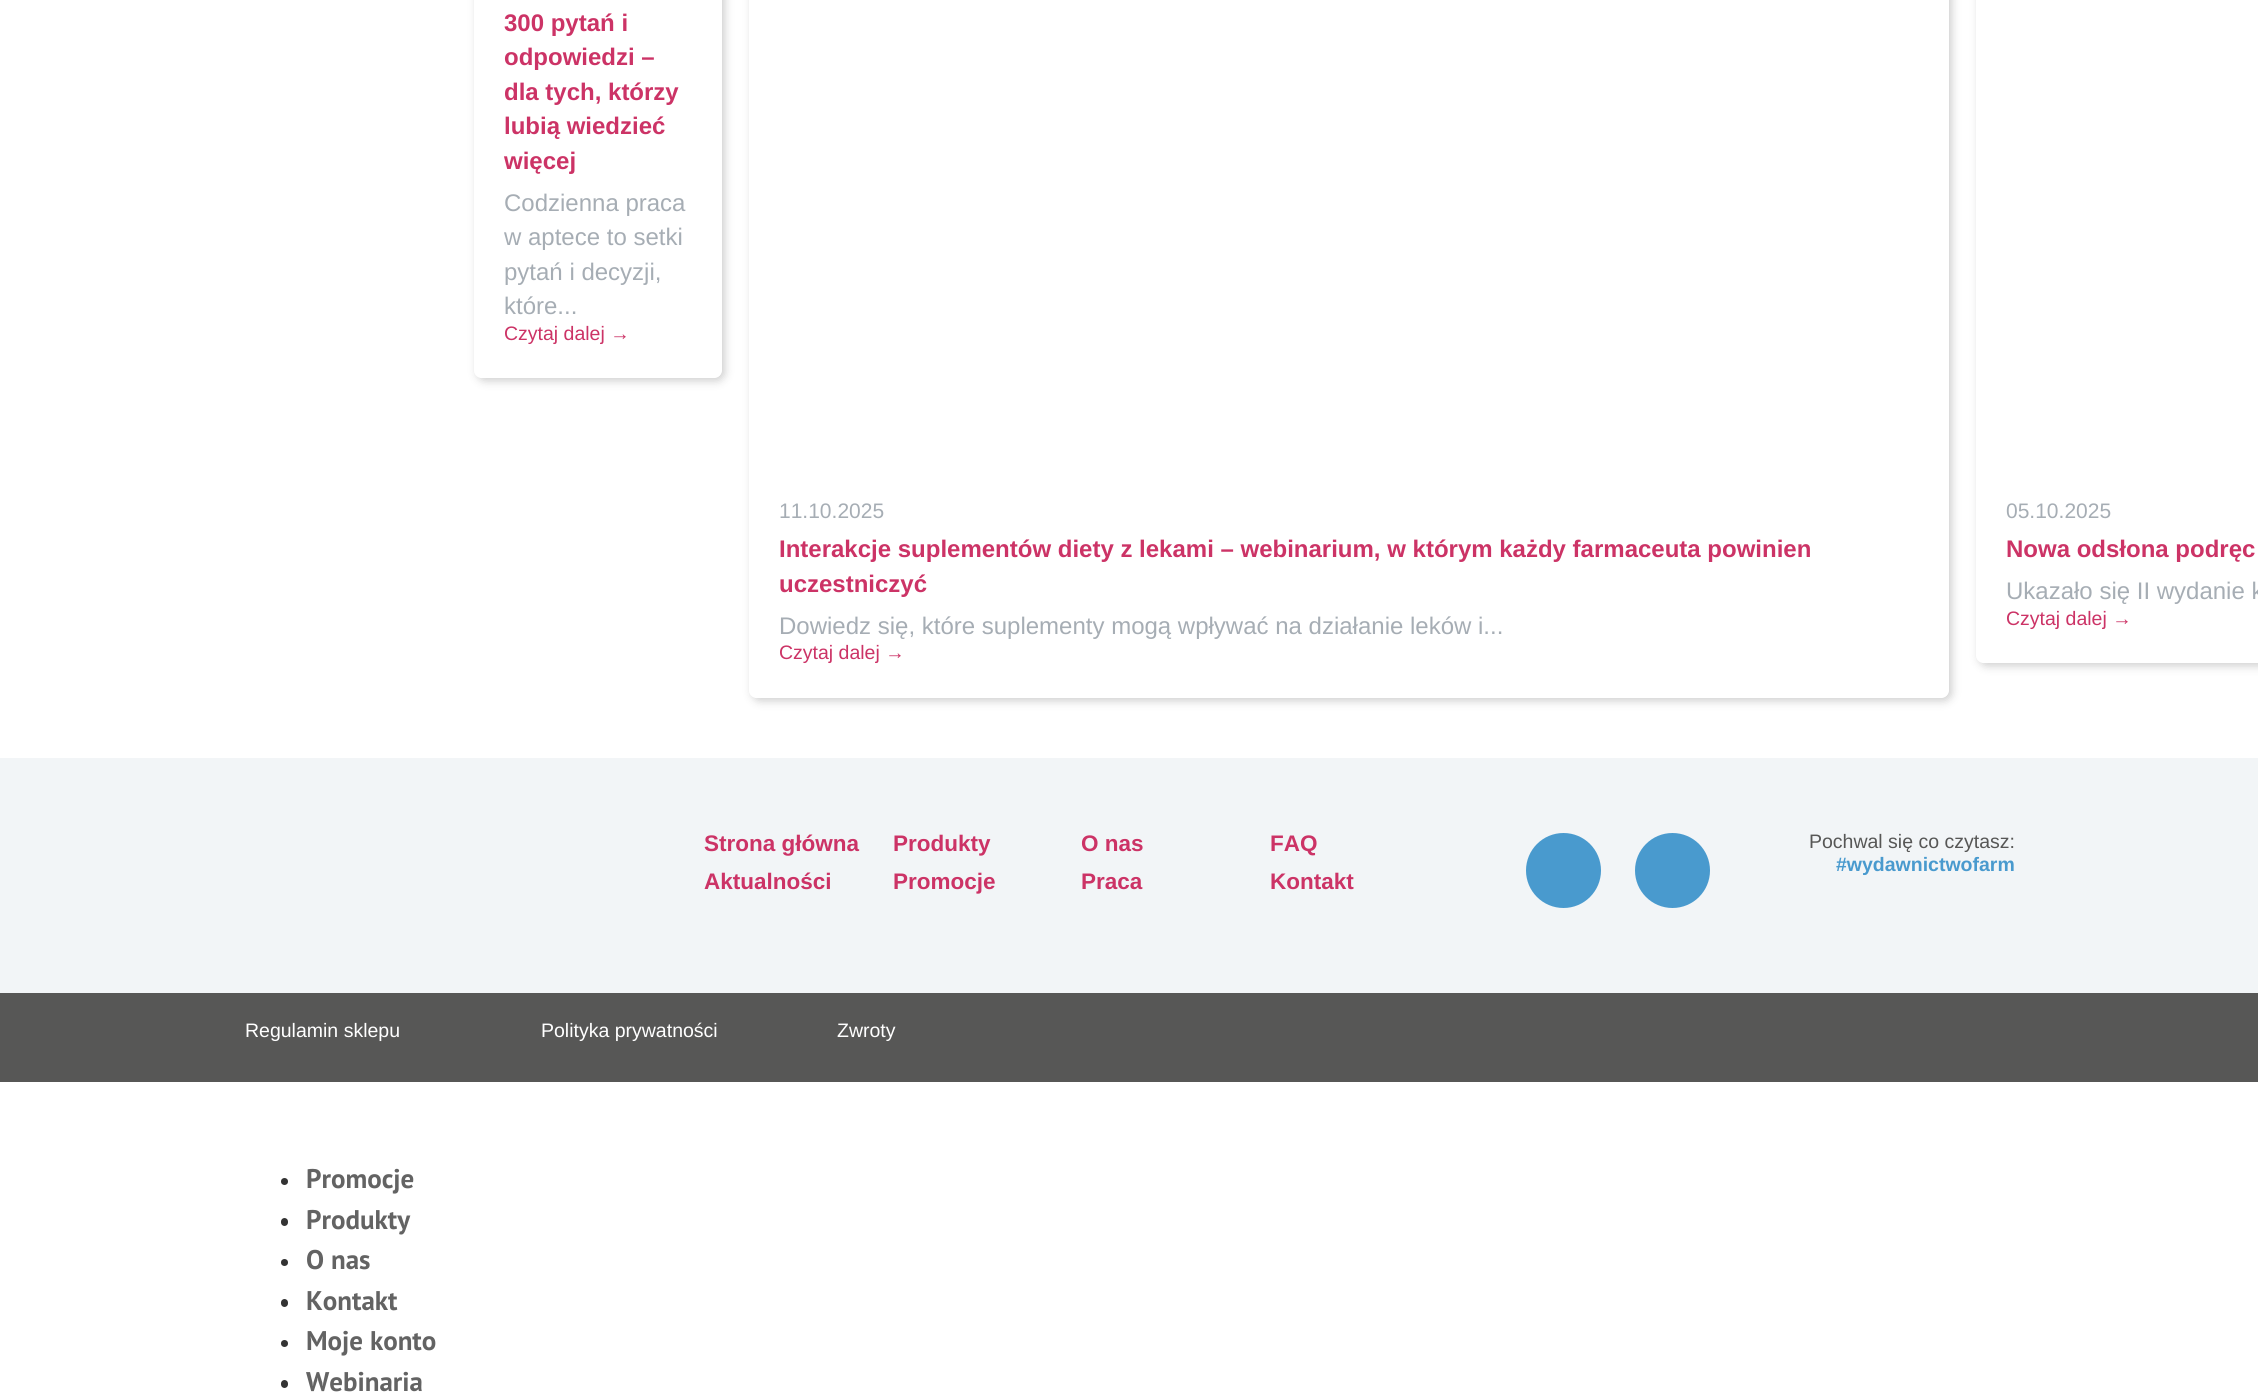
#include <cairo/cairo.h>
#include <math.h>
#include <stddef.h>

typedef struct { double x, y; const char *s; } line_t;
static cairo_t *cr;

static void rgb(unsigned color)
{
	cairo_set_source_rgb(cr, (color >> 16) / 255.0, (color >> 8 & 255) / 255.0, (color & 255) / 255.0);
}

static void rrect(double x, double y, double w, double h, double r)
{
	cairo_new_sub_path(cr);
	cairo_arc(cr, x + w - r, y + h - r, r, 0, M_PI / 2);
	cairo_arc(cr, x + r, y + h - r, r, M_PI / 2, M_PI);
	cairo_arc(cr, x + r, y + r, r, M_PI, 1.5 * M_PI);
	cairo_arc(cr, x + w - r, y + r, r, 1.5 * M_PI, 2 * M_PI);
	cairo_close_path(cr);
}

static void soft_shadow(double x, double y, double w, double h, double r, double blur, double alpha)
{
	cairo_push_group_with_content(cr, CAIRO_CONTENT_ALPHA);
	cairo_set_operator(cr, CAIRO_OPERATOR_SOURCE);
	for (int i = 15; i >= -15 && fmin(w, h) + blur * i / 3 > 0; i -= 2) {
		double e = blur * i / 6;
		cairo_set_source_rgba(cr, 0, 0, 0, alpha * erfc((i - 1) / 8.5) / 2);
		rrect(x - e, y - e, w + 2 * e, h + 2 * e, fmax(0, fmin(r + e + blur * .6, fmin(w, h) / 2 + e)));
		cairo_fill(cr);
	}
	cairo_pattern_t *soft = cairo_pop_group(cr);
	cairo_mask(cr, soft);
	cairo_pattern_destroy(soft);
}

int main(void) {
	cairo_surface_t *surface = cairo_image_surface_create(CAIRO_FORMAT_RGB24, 2258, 1399);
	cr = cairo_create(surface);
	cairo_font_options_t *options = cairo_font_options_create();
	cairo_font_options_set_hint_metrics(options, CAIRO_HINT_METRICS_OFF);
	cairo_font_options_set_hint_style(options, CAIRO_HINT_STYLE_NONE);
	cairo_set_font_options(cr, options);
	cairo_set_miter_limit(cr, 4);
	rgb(0xffffff);
	cairo_paint(cr);
	cairo_save(cr);
	cairo_set_fill_rule(cr, CAIRO_FILL_RULE_EVEN_ODD);
	cairo_new_path(cr);
	cairo_move_to(cr, 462, 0);
	cairo_line_to(cr, 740, 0);
	cairo_line_to(cr, 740, 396);
	cairo_line_to(cr, 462, 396);
	cairo_close_path(cr);
	cairo_move_to(cr, 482, -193);
	cairo_line_to(cr, 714, -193);
	cairo_curve_to(cr, 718.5, -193, 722, -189.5, 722, -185);
	cairo_line_to(cr, 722, 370);
	cairo_curve_to(cr, 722, 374.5, 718.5, 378, 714, 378);
	cairo_line_to(cr, 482, 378);
	cairo_curve_to(cr, 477.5, 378, 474, 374.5, 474, 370);
	cairo_line_to(cr, 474, -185);
	cairo_curve_to(cr, 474, -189.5, 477.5, -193, 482, -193);
	cairo_close_path(cr);
	cairo_clip(cr);
	rgb(0x000000);
	soft_shadow(477, -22, 248, 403, 8, 4.5, 0.19);
	cairo_restore(cr);
	cairo_save(cr);
	cairo_set_fill_rule(cr, CAIRO_FILL_RULE_EVEN_ODD);
	cairo_new_path(cr);
	cairo_move_to(cr, 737, 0);
	cairo_line_to(cr, 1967, 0);
	cairo_line_to(cr, 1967, 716);
	cairo_line_to(cr, 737, 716);
	cairo_close_path(cr);
	cairo_move_to(cr, 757, -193);
	cairo_line_to(cr, 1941, -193);
	cairo_curve_to(cr, 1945.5, -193, 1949, -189.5, 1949, -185);
	cairo_line_to(cr, 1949, 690);
	cairo_curve_to(cr, 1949, 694.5, 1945.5, 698, 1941, 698);
	cairo_line_to(cr, 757, 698);
	cairo_curve_to(cr, 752.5, 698, 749, 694.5, 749, 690);
	cairo_line_to(cr, 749, -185);
	cairo_curve_to(cr, 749, -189.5, 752.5, -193, 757, -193);
	cairo_close_path(cr);
	cairo_clip(cr);
	rgb(0x000000);
	soft_shadow(752, -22, 1200, 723, 8, 4.5, 0.19);
	cairo_restore(cr);
	cairo_save(cr);
	cairo_set_fill_rule(cr, CAIRO_FILL_RULE_EVEN_ODD);
	cairo_new_path(cr);
	cairo_move_to(cr, 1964, 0);
	cairo_line_to(cr, 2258, 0);
	cairo_line_to(cr, 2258, 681);
	cairo_line_to(cr, 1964, 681);
	cairo_close_path(cr);
	cairo_move_to(cr, 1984, -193);
	cairo_line_to(cr, 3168, -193);
	cairo_curve_to(cr, 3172.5, -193, 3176, -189.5, 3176, -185);
	cairo_line_to(cr, 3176, 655);
	cairo_curve_to(cr, 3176, 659.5, 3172.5, 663, 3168, 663);
	cairo_line_to(cr, 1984, 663);
	cairo_curve_to(cr, 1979.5, 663, 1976, 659.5, 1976, 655);
	cairo_line_to(cr, 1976, -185);
	cairo_curve_to(cr, 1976, -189.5, 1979.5, -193, 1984, -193);
	cairo_close_path(cr);
	cairo_clip(cr);
	rgb(0x000000);
	soft_shadow(1979, -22, 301, 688, 8, 4.5, 0.19);
	cairo_restore(cr);
	rgb(0xf2f5f7);
	cairo_rectangle(cr, 0, 758, 2258, 235);
	cairo_fill(cr);
	rgb(0x499ace);
	cairo_arc(cr, 1563.5, 870.5, 37.5, 0, 2 * M_PI);
	cairo_fill(cr);
	cairo_arc(cr, 1672.5, 870.5, 37.5, 0, 2 * M_PI);
	cairo_fill(cr);
	rgb(0x575756);
	cairo_rectangle(cr, 0, 993, 2258, 89);
	cairo_fill(cr);
	rgb(0x333333);
	cairo_arc(cr, 284.5, 1181.5, 3.5, 0, 2 * M_PI);
	cairo_fill(cr);
	rrect(281, 1218, 7, 8, 3.5);
	cairo_fill(cr);
	cairo_arc(cr, 284.5, 1262.5, 3.5, 0, 2 * M_PI);
	cairo_fill(cr);
	rrect(281, 1299, 7, 8, 3.5);
	cairo_fill(cr);
	cairo_arc(cr, 284.5, 1343.5, 3.5, 0, 2 * M_PI);
	cairo_fill(cr);
	rrect(281, 1380, 7, 8, 3.5);
	cairo_fill(cr);
	cairo_select_font_face(cr, "Liberation Sans", CAIRO_FONT_SLANT_NORMAL, CAIRO_FONT_WEIGHT_BOLD);
	cairo_set_font_size(cr, 24);
	rgb(0xcc3366);
	{
		static const line_t items[] = {
			{504, 31, "300 pytań i"},
			{504, 65, "odpowiedzi –"},
			{504, 100, "dla tych, którzy"},
			{504, 134, "lubią wiedzieć"},
			{504, 169, "więcej"},
		};
		for (size_t i = 0; i < sizeof items / sizeof *items; i++) {
			cairo_move_to(cr, items[i].x, items[i].y);
			cairo_show_text(cr, items[i].s);
		}
	}
	cairo_select_font_face(cr, "Liberation Sans", CAIRO_FONT_SLANT_NORMAL, CAIRO_FONT_WEIGHT_NORMAL);
	rgb(0xa6adb4);
	{
		static const line_t items[] = {
			{504, 211, "Codzienna praca"},
			{504, 245, "w aptece to setki"},
			{504, 280, "pytań i decyzji,"},
			{504, 314, "które..."},
		};
		for (size_t i = 0; i < sizeof items / sizeof *items; i++) {
			cairo_move_to(cr, items[i].x, items[i].y);
			cairo_show_text(cr, items[i].s);
		}
	}
	cairo_set_font_size(cr, 19.5);
	rgb(0xcc3366);
	cairo_move_to(cr, 504, 340);
	cairo_show_text(cr, "Czytaj dalej →");
	cairo_set_font_size(cr, 21);
	rgb(0xa6adb4);
	cairo_move_to(cr, 779, 518);
	cairo_show_text(cr, "11.10.2025");
	cairo_select_font_face(cr, "Liberation Sans", CAIRO_FONT_SLANT_NORMAL, CAIRO_FONT_WEIGHT_BOLD);
	cairo_set_font_size(cr, 24);
	rgb(0xcc3366);
	cairo_move_to(cr, 779, 557);
	cairo_show_text(cr, "Interakcje suplementów diety z lekami – webinarium, w którym każdy farmaceuta powinien");
	cairo_move_to(cr, 779, 592);
	cairo_show_text(cr, "uczestniczyć");
	cairo_select_font_face(cr, "Liberation Sans", CAIRO_FONT_SLANT_NORMAL, CAIRO_FONT_WEIGHT_NORMAL);
	rgb(0xa6adb4);
	cairo_move_to(cr, 779, 634);
	cairo_show_text(cr, "Dowiedz się, które suplementy mogą wpływać na działanie leków i...");
	cairo_set_font_size(cr, 19.5);
	rgb(0xcc3366);
	cairo_move_to(cr, 779, 659);
	cairo_show_text(cr, "Czytaj dalej →");
	cairo_set_font_size(cr, 21);
	rgb(0xa6adb4);
	cairo_move_to(cr, 2006, 518);
	cairo_show_text(cr, "05.10.2025");
	cairo_select_font_face(cr, "Liberation Sans", CAIRO_FONT_SLANT_NORMAL, CAIRO_FONT_WEIGHT_BOLD);
	cairo_set_font_size(cr, 24);
	rgb(0xcc3366);
	cairo_move_to(cr, 2006, 557);
	cairo_show_text(cr, "Nowa odsłona podręc");
	cairo_select_font_face(cr, "Liberation Sans", CAIRO_FONT_SLANT_NORMAL, CAIRO_FONT_WEIGHT_NORMAL);
	rgb(0xa6adb4);
	cairo_move_to(cr, 2006, 599);
	cairo_show_text(cr, "Ukazało się II wydanie k");
	cairo_set_font_size(cr, 19.5);
	rgb(0xcc3366);
	cairo_move_to(cr, 2006, 625);
	cairo_show_text(cr, "Czytaj dalej →");
	cairo_select_font_face(cr, "Liberation Sans", CAIRO_FONT_SLANT_NORMAL, CAIRO_FONT_WEIGHT_BOLD);
	cairo_set_font_size(cr, 22.5);
	{
		static const line_t items[] = {
			{704, 851, "Strona główna"},
			{704, 889, "Aktualności"},
			{893, 851, "Produkty"},
			{893, 889, "Promocje"},
			{1081, 851, "O nas"},
			{1081, 889, "Praca"},
			{1270, 851, "FAQ"},
			{1270, 889, "Kontakt"},
		};
		for (size_t i = 0; i < sizeof items / sizeof *items; i++) {
			cairo_move_to(cr, items[i].x, items[i].y);
			cairo_show_text(cr, items[i].s);
		}
	}
	cairo_select_font_face(cr, "Liberation Sans", CAIRO_FONT_SLANT_NORMAL, CAIRO_FONT_WEIGHT_NORMAL);
	cairo_set_font_size(cr, 19.5);
	rgb(0x575756);
	cairo_move_to(cr, 1809, 848);
	cairo_show_text(cr, "Pochwal się co czytasz:");
	cairo_select_font_face(cr, "Liberation Sans", CAIRO_FONT_SLANT_NORMAL, CAIRO_FONT_WEIGHT_BOLD);
	rgb(0x499ace);
	cairo_move_to(cr, 1836, 871);
	cairo_show_text(cr, "#wydawnictwofarm");
	cairo_select_font_face(cr, "Liberation Sans", CAIRO_FONT_SLANT_NORMAL, CAIRO_FONT_WEIGHT_NORMAL);
	rgb(0xffffff);
	{
		static const line_t items[] = {
			{245, 1037, "Regulamin sklepu"},
			{541, 1037, "Polityka prywatności"},
			{837, 1037, "Zwroty"},
		};
		for (size_t i = 0; i < sizeof items / sizeof *items; i++) {
			cairo_move_to(cr, items[i].x, items[i].y);
			cairo_show_text(cr, items[i].s);
		}
	}
	cairo_select_font_face(cr, "PT Sans", CAIRO_FONT_SLANT_NORMAL, CAIRO_FONT_WEIGHT_BOLD);
	cairo_set_font_size(cr, 27);
	rgb(0x636363);
	{
		static const line_t items[] = {
			{306, 1188, "Promocje"},
			{306, 1229, "Produkty"},
			{306, 1269, "O nas"},
			{306, 1310, "Kontakt"},
			{306, 1350, "Moje konto"},
			{306, 1391, "Webinaria"},
		};
		for (size_t i = 0; i < sizeof items / sizeof *items; i++) {
			cairo_move_to(cr, items[i].x, items[i].y);
			cairo_show_text(cr, items[i].s);
		}
	}
	cairo_surface_write_to_png(surface, "page.png");
	cairo_font_options_destroy(options);
	cairo_destroy(cr);
	cairo_surface_destroy(surface);
	return 0;
}
